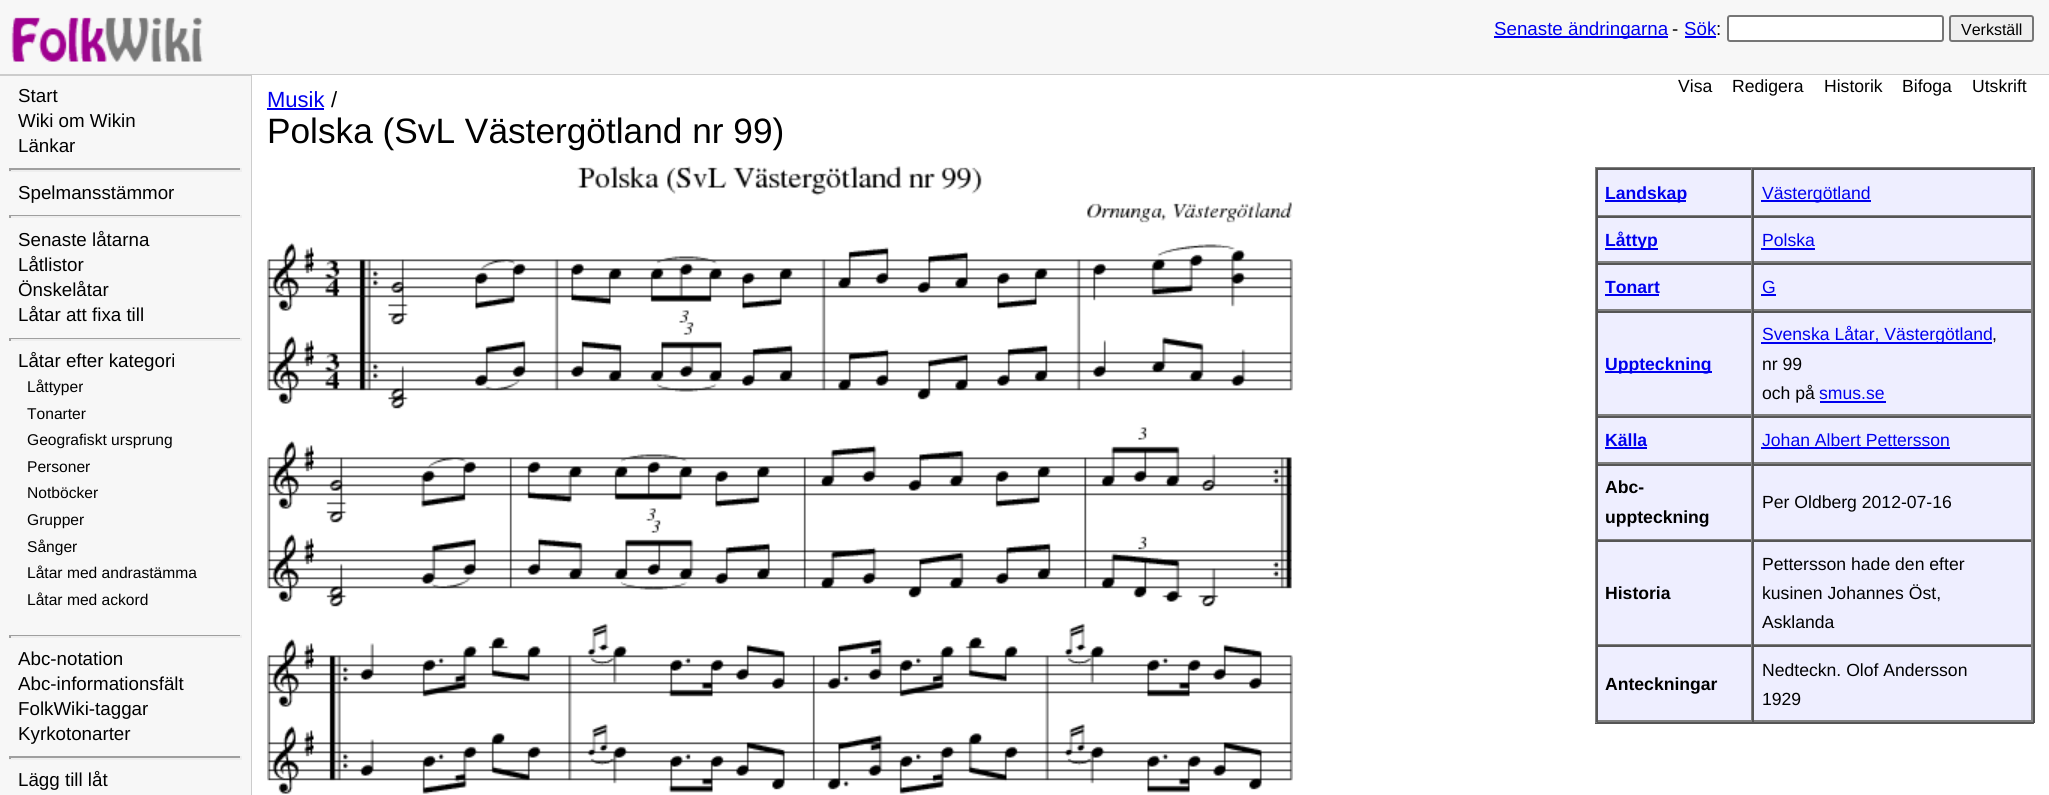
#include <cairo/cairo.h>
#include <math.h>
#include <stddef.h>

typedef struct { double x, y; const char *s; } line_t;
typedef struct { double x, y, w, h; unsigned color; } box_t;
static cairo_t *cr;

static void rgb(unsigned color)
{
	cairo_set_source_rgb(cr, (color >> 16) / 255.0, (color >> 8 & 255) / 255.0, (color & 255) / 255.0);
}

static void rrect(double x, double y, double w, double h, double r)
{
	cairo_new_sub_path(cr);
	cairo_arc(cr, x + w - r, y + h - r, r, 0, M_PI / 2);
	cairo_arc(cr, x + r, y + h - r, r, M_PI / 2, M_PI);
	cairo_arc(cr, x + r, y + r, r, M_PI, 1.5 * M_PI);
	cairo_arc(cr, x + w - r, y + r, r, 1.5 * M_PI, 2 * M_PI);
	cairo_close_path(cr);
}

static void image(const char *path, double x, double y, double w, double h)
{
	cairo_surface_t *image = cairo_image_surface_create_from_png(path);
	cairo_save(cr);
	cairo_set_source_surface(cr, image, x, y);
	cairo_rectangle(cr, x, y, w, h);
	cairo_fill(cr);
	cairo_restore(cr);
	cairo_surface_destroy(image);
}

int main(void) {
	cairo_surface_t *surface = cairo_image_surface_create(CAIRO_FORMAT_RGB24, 2049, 795);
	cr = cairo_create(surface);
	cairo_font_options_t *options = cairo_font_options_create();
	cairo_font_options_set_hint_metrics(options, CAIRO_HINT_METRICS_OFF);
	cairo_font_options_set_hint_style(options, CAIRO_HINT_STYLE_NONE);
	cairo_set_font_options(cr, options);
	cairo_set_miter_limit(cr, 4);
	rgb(0xf7f7f7);
	cairo_paint(cr);
	rgb(0xcccccc);
	cairo_rectangle(cr, 0, 74, 2049, 2);
	cairo_fill(cr);
	image("img/1.png", 11, 17, 192, 45);
	rgb(0x0000ee);
	cairo_rectangle(cr, 1494, 36, 174, 2);
	cairo_fill(cr);
	cairo_rectangle(cr, 1685, 36, 31, 2);
	cairo_fill(cr);
	rgb(0xffffff);
	rrect(1728, 16, 215, 25, 2);
	cairo_fill_preserve(cr);
	rgb(0x767676);
	cairo_stroke(cr);
	rgb(0xefefef);
	rrect(1950, 16, 83, 25, 2);
	cairo_fill_preserve(cr);
	rgb(0x767676);
	cairo_stroke(cr);
	{
		static const box_t items[] = {
			{251, 75, 1, 720, 0xcccccc},
			{9, 168, 233, 2, 0x9f9f9f},
			{240, 168, 2, 3, 0xeeeeee},
			{9, 170, 233, 2, 0xeeeeee},
			{9, 168, 2, 3, 0x9f9f9f},
			{9, 215, 233, 1, 0x9f9f9f},
			{240, 215, 2, 3, 0xeeeeee},
			{9, 216, 233, 2, 0xeeeeee},
			{9, 215, 2, 3, 0x9f9f9f},
			{9, 338, 233, 1, 0x9f9f9f},
			{240, 338, 2, 3, 0xeeeeee},
			{9, 339, 233, 2, 0xeeeeee},
			{9, 338, 2, 3, 0x9f9f9f},
			{9, 635, 233, 1, 0x9f9f9f},
			{240, 635, 2, 3, 0xeeeeee},
			{9, 636, 233, 2, 0xeeeeee},
			{9, 635, 2, 3, 0x9f9f9f},
			{9, 756, 233, 2, 0x9f9f9f},
			{240, 756, 2, 3, 0xeeeeee},
			{9, 758, 233, 2, 0xeeeeee},
			{9, 756, 2, 3, 0x9f9f9f},
			{252, 75, 1797, 720, 0xffffff},
			{267, 108, 57, 2, 0x0000ee},
		};
		for (size_t i = 0; i < sizeof items / sizeof *items; i++) {
			rgb(items[i].color);
			cairo_rectangle(cr, items[i].x, items[i].y, items[i].w, items[i].h);
			cairo_fill(cr);
		}
	}
	image("img/2.png", 267, 166, 1026, 628);
	{
		static const box_t items[] = {
			{1598, 170, 433, 550, 0xeeeeff},
			{1595, 167, 439, 1, 0x808080},
			{2033, 167, 2, 556, 0x555555},
			{1595, 722, 439, 2, 0x555555},
			{1595, 167, 2, 556, 0x808080},
			{1596, 168, 437, 2, 0x555555},
			{1751, 168, 1, 48, 0x808080},
			{1596, 215, 156, 1, 0x808080},
			{1596, 168, 2, 48, 0x555555},
			{1605, 200, 81, 2, 0x0000ee},
			{2031, 168, 2, 48, 0x808080},
			{1752, 215, 281, 1, 0x808080},
			{1752, 168, 2, 48, 0x555555},
			{1761, 200, 110, 2, 0x0000ee},
			{1596, 216, 437, 2, 0x555555},
			{1751, 216, 1, 47, 0x808080},
			{1596, 261, 156, 2, 0x808080},
			{1596, 216, 2, 47, 0x555555},
			{1605, 248, 53, 2, 0x0000ee},
			{2031, 216, 2, 47, 0x808080},
			{1752, 261, 281, 2, 0x808080},
			{1752, 216, 2, 47, 0x555555},
			{1761, 248, 54, 2, 0x0000ee},
			{1596, 263, 437, 2, 0x555555},
			{1751, 263, 1, 48, 0x808080},
			{1596, 309, 156, 2, 0x808080},
			{1596, 263, 2, 48, 0x555555},
			{1605, 294, 54, 2, 0x0000ee},
			{2031, 263, 2, 48, 0x808080},
			{1752, 309, 281, 2, 0x808080},
			{1752, 263, 2, 48, 0x555555},
			{1761, 294, 15, 2, 0x0000ee},
			{1596, 311, 437, 2, 0x555555},
			{1751, 311, 1, 105, 0x808080},
			{1596, 414, 156, 2, 0x808080},
			{1596, 311, 2, 105, 0x555555},
			{1605, 371, 107, 2, 0x0000ee},
			{2031, 311, 2, 105, 0x808080},
			{1752, 414, 281, 2, 0x808080},
			{1752, 311, 2, 105, 0x555555},
			{1761, 342, 231, 2, 0x0000ee},
			{1820, 401, 66, 2, 0x0000ee},
			{1596, 416, 437, 2, 0x555555},
			{1751, 416, 1, 48, 0x808080},
			{1596, 462, 156, 2, 0x808080},
			{1596, 416, 2, 48, 0x555555},
			{1605, 447, 42, 2, 0x0000ee},
			{2031, 416, 2, 48, 0x808080},
			{1752, 462, 281, 2, 0x808080},
			{1752, 416, 2, 48, 0x555555},
			{1761, 447, 189, 2, 0x0000ee},
			{1596, 464, 437, 2, 0x555555},
			{1751, 464, 1, 76, 0x808080},
			{1596, 539, 156, 1, 0x808080},
			{1596, 464, 2, 76, 0x555555},
			{2031, 464, 2, 76, 0x808080},
			{1752, 539, 281, 1, 0x808080},
			{1752, 464, 2, 76, 0x555555},
			{1596, 540, 437, 2, 0x555555},
			{1751, 540, 1, 105, 0x808080},
			{1596, 644, 156, 1, 0x808080},
			{1596, 540, 2, 105, 0x555555},
			{2031, 540, 2, 105, 0x808080},
			{1752, 644, 281, 1, 0x808080},
			{1752, 540, 2, 105, 0x555555},
			{1596, 645, 437, 2, 0x555555},
			{1751, 645, 1, 77, 0x808080},
			{1596, 720, 156, 2, 0x808080},
			{1596, 645, 2, 77, 0x555555},
			{2031, 645, 2, 77, 0x808080},
			{1752, 720, 281, 2, 0x808080},
			{1752, 645, 2, 77, 0x555555},
		};
		for (size_t i = 0; i < sizeof items / sizeof *items; i++) {
			rgb(items[i].color);
			cairo_rectangle(cr, items[i].x, items[i].y, items[i].w, items[i].h);
			cairo_fill(cr);
		}
	}
	cairo_select_font_face(cr, "Liberation Sans", CAIRO_FONT_SLANT_NORMAL, CAIRO_FONT_WEIGHT_NORMAL);
	cairo_set_font_size(cr, 18.75);
	rgb(0x0000ee);
	cairo_move_to(cr, 1494, 35);
	cairo_show_text(cr, "Senaste ändringarna");
	rgb(0x000000);
	cairo_move_to(cr, 1672, 35);
	cairo_show_text(cr, "-");
	rgb(0x0000ee);
	cairo_move_to(cr, 1684, 35);
	cairo_show_text(cr, "Sök");
	rgb(0x000000);
	cairo_move_to(cr, 1716, 35);
	cairo_show_text(cr, ":");
	cairo_set_font_size(cr, 16);
	cairo_move_to(cr, 1961, 35);
	cairo_show_text(cr, "Verkställ");
	cairo_set_font_size(cr, 18.75);
	{
		static const line_t items[] = {
			{18, 102, "Start"},
			{18, 127, "Wiki om Wikin"},
			{18, 152, "Länkar"},
			{18, 199, "Spelmansstämmor"},
			{18, 246, "Senaste låtarna"},
			{18, 271, "Låtlistor"},
			{18, 296, "Önskelåtar"},
			{18, 321, "Låtar att fixa till"},
			{18, 367, "Låtar efter kategori"},
		};
		for (size_t i = 0; i < sizeof items / sizeof *items; i++) {
			cairo_move_to(cr, items[i].x, items[i].y);
			cairo_show_text(cr, items[i].s);
		}
	}
	cairo_set_font_size(cr, 15.6);
	{
		static const line_t items[] = {
			{27, 392, "Låttyper"},
			{27, 419, "Tonarter"},
			{27, 445, "Geografiskt ursprung"},
			{27, 472, "Personer"},
			{27, 498, "Notböcker"},
			{27, 525, "Grupper"},
			{27, 552, "Sånger"},
			{27, 578, "Låtar med andrastämma"},
			{27, 605, "Låtar med ackord"},
		};
		for (size_t i = 0; i < sizeof items / sizeof *items; i++) {
			cairo_move_to(cr, items[i].x, items[i].y);
			cairo_show_text(cr, items[i].s);
		}
	}
	cairo_set_font_size(cr, 18.75);
	{
		static const line_t items[] = {
			{18, 665, "Abc-notation"},
			{18, 690, "Abc-informationsfält"},
			{18, 715, "FolkWiki-taggar"},
			{18, 740, "Kyrkotonarter"},
			{18, 786, "Lägg till låt"},
		};
		for (size_t i = 0; i < sizeof items / sizeof *items; i++) {
			cairo_move_to(cr, items[i].x, items[i].y);
			cairo_show_text(cr, items[i].s);
		}
	}
	cairo_set_font_size(cr, 17.6);
	{
		static const line_t items[] = {
			{1678, 92, "Visa"},
			{1732, 92, "Redigera"},
			{1824, 92, "Historik"},
			{1902, 92, "Bifoga"},
			{1972, 92, "Utskrift"},
		};
		for (size_t i = 0; i < sizeof items / sizeof *items; i++) {
			cairo_move_to(cr, items[i].x, items[i].y);
			cairo_show_text(cr, items[i].s);
		}
	}
	cairo_set_font_size(cr, 22);
	rgb(0x0000ee);
	cairo_move_to(cr, 267, 107);
	cairo_show_text(cr, "Musik");
	rgb(0x000000);
	cairo_move_to(cr, 331, 107);
	cairo_show_text(cr, "/");
	cairo_set_font_size(cr, 35.25);
	cairo_move_to(cr, 267, 143);
	cairo_show_text(cr, "Polska (SvL Västergötland nr 99)");
	cairo_select_font_face(cr, "Liberation Sans", CAIRO_FONT_SLANT_NORMAL, CAIRO_FONT_WEIGHT_BOLD);
	cairo_set_font_size(cr, 17.6);
	rgb(0x0000ee);
	cairo_move_to(cr, 1605, 199);
	cairo_show_text(cr, "Landskap");
	cairo_select_font_face(cr, "Liberation Sans", CAIRO_FONT_SLANT_NORMAL, CAIRO_FONT_WEIGHT_NORMAL);
	cairo_move_to(cr, 1762, 199);
	cairo_show_text(cr, "Västergötland");
	cairo_select_font_face(cr, "Liberation Sans", CAIRO_FONT_SLANT_NORMAL, CAIRO_FONT_WEIGHT_BOLD);
	cairo_move_to(cr, 1605, 246);
	cairo_show_text(cr, "Låttyp");
	cairo_select_font_face(cr, "Liberation Sans", CAIRO_FONT_SLANT_NORMAL, CAIRO_FONT_WEIGHT_NORMAL);
	cairo_move_to(cr, 1762, 246);
	cairo_show_text(cr, "Polska");
	cairo_select_font_face(cr, "Liberation Sans", CAIRO_FONT_SLANT_NORMAL, CAIRO_FONT_WEIGHT_BOLD);
	cairo_move_to(cr, 1605, 293);
	cairo_show_text(cr, "Tonart");
	cairo_select_font_face(cr, "Liberation Sans", CAIRO_FONT_SLANT_NORMAL, CAIRO_FONT_WEIGHT_NORMAL);
	cairo_move_to(cr, 1762, 293);
	cairo_show_text(cr, "G");
	cairo_select_font_face(cr, "Liberation Sans", CAIRO_FONT_SLANT_NORMAL, CAIRO_FONT_WEIGHT_BOLD);
	cairo_move_to(cr, 1605, 370);
	cairo_show_text(cr, "Uppteckning");
	cairo_select_font_face(cr, "Liberation Sans", CAIRO_FONT_SLANT_NORMAL, CAIRO_FONT_WEIGHT_NORMAL);
	cairo_move_to(cr, 1762, 340);
	cairo_show_text(cr, "Svenska Låtar, Västergötland");
	rgb(0x000000);
	{
		static const line_t items[] = {
			{1992, 340, ","},
			{1762, 370, "nr 99"},
			{1762, 399, "och på"},
		};
		for (size_t i = 0; i < sizeof items / sizeof *items; i++) {
			cairo_move_to(cr, items[i].x, items[i].y);
			cairo_show_text(cr, items[i].s);
		}
	}
	rgb(0x0000ee);
	cairo_move_to(cr, 1819, 399);
	cairo_show_text(cr, "smus.se");
	cairo_select_font_face(cr, "Liberation Sans", CAIRO_FONT_SLANT_NORMAL, CAIRO_FONT_WEIGHT_BOLD);
	cairo_move_to(cr, 1605, 446);
	cairo_show_text(cr, "Källa");
	cairo_select_font_face(cr, "Liberation Sans", CAIRO_FONT_SLANT_NORMAL, CAIRO_FONT_WEIGHT_NORMAL);
	cairo_move_to(cr, 1762, 446);
	cairo_show_text(cr, "Johan Albert Pettersson");
	cairo_select_font_face(cr, "Liberation Sans", CAIRO_FONT_SLANT_NORMAL, CAIRO_FONT_WEIGHT_BOLD);
	rgb(0x000000);
	cairo_move_to(cr, 1605, 493);
	cairo_show_text(cr, "Abc-");
	cairo_move_to(cr, 1605, 523);
	cairo_show_text(cr, "uppteckning");
	cairo_select_font_face(cr, "Liberation Sans", CAIRO_FONT_SLANT_NORMAL, CAIRO_FONT_WEIGHT_NORMAL);
	cairo_move_to(cr, 1762, 508);
	cairo_show_text(cr, "Per Oldberg 2012-07-16");
	cairo_select_font_face(cr, "Liberation Sans", CAIRO_FONT_SLANT_NORMAL, CAIRO_FONT_WEIGHT_BOLD);
	cairo_move_to(cr, 1605, 599);
	cairo_show_text(cr, "Historia");
	cairo_select_font_face(cr, "Liberation Sans", CAIRO_FONT_SLANT_NORMAL, CAIRO_FONT_WEIGHT_NORMAL);
	{
		static const line_t items[] = {
			{1762, 570, "Pettersson hade den efter"},
			{1762, 599, "kusinen Johannes Öst,"},
			{1762, 628, "Asklanda"},
		};
		for (size_t i = 0; i < sizeof items / sizeof *items; i++) {
			cairo_move_to(cr, items[i].x, items[i].y);
			cairo_show_text(cr, items[i].s);
		}
	}
	cairo_select_font_face(cr, "Liberation Sans", CAIRO_FONT_SLANT_NORMAL, CAIRO_FONT_WEIGHT_BOLD);
	cairo_move_to(cr, 1605, 690);
	cairo_show_text(cr, "Anteckningar");
	cairo_select_font_face(cr, "Liberation Sans", CAIRO_FONT_SLANT_NORMAL, CAIRO_FONT_WEIGHT_NORMAL);
	cairo_move_to(cr, 1762, 676);
	cairo_show_text(cr, "Nedteckn. Olof Andersson");
	cairo_move_to(cr, 1762, 705);
	cairo_show_text(cr, "1929");
	cairo_surface_write_to_png(surface, "page.png");
	cairo_font_options_destroy(options);
	cairo_destroy(cr);
	cairo_surface_destroy(surface);
	return 0;
}
